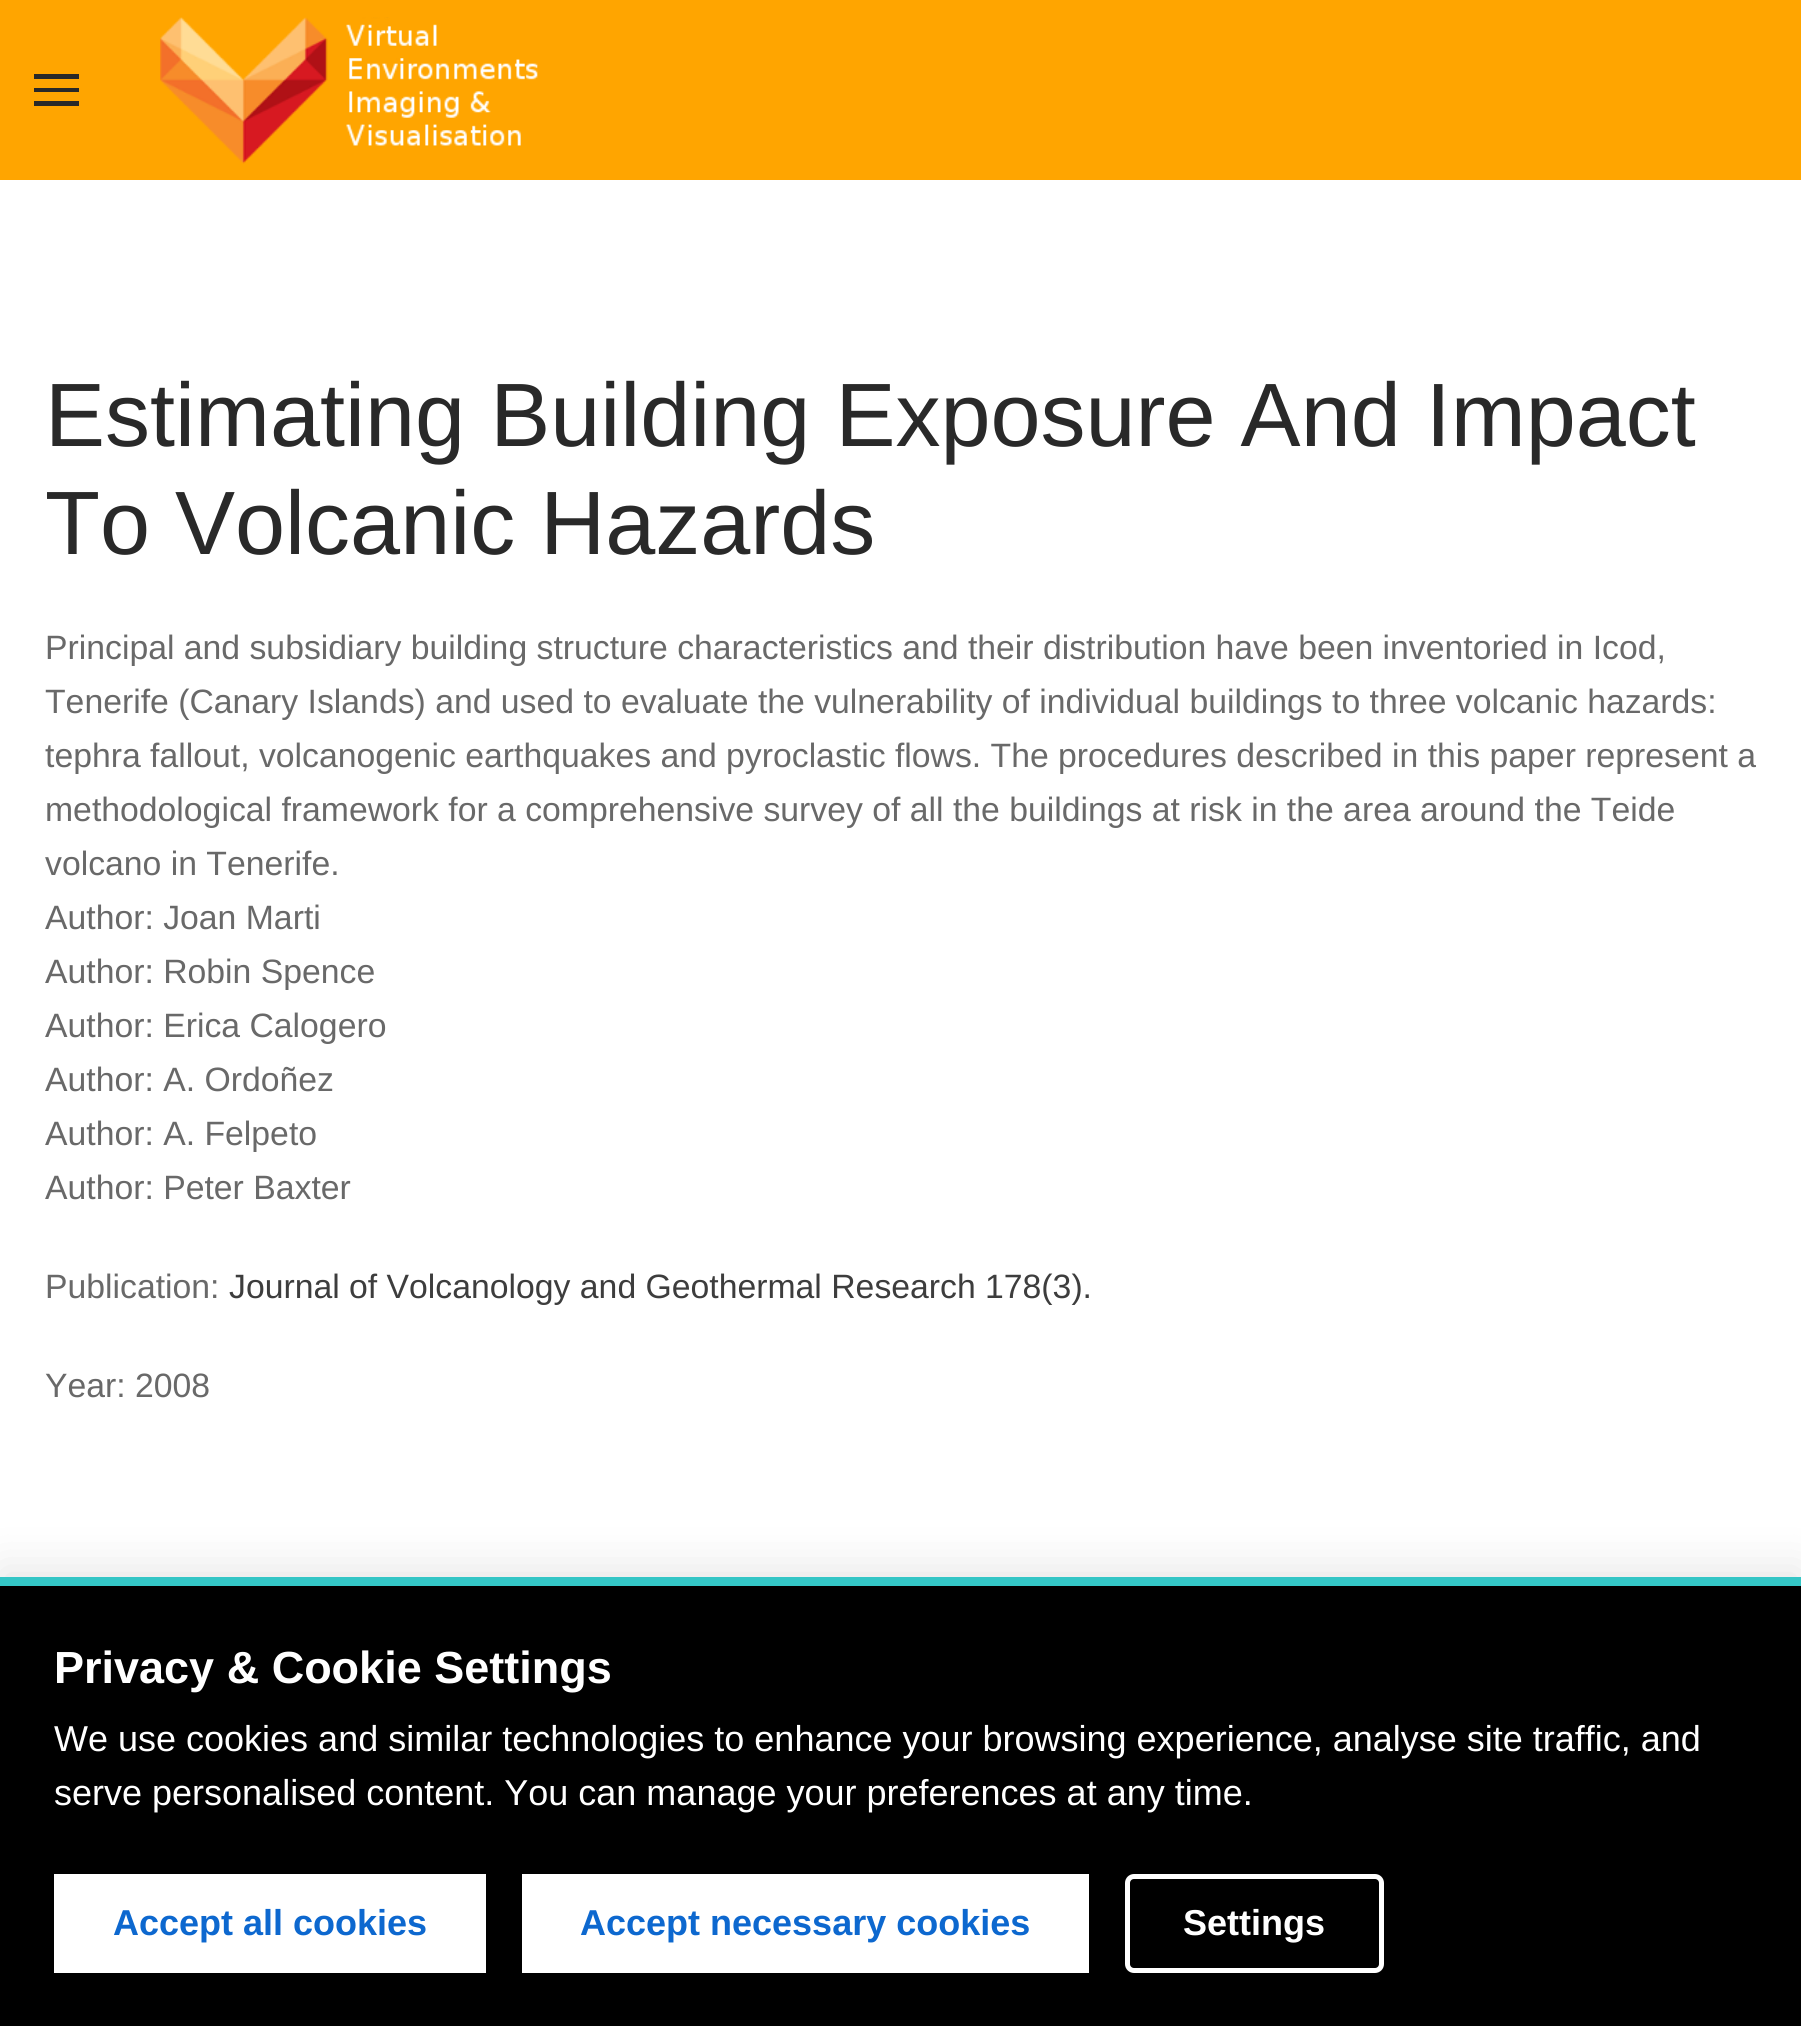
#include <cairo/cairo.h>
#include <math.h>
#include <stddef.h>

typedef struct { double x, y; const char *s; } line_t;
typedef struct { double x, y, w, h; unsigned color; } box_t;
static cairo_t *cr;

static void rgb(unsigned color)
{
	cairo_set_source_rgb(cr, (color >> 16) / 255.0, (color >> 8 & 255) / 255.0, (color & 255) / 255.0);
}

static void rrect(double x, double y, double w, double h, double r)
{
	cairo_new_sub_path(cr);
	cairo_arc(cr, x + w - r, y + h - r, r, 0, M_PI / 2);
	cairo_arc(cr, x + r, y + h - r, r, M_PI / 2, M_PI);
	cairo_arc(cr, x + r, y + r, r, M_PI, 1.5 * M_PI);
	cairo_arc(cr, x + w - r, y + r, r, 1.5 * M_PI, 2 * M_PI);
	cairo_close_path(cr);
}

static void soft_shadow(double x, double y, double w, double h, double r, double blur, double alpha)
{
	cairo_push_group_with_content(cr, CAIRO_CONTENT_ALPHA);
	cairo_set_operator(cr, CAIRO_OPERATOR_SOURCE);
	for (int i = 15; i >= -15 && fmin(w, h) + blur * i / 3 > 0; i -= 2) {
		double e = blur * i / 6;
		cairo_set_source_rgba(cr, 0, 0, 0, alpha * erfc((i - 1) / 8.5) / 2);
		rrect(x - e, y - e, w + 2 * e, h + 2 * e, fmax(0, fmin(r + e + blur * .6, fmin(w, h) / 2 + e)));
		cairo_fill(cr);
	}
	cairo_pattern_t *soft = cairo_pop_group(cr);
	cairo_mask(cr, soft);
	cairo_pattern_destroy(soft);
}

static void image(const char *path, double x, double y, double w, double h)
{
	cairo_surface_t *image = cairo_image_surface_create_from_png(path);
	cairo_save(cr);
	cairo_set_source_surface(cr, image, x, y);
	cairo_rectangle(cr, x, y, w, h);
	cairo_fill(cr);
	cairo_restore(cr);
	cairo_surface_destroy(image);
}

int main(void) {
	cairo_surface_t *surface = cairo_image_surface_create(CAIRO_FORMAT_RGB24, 1801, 2026);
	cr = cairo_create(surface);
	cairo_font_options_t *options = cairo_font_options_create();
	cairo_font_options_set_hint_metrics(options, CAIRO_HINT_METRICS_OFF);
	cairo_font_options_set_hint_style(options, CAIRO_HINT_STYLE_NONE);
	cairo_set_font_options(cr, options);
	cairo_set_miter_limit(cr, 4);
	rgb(0xffffff);
	cairo_paint(cr);
	{
		static const box_t items[] = {
			{0, 0, 1801, 180, 0xffa500},
			{34, 74, 45, 5, 0x292929},
			{34, 88, 45, 4, 0x292929},
			{34, 101, 45, 5, 0x292929},
		};
		for (size_t i = 0; i < sizeof items / sizeof *items; i++) {
			rgb(items[i].color);
			cairo_rectangle(cr, items[i].x, items[i].y, items[i].w, items[i].h);
			cairo_fill(cr);
		}
	}
	image("img/1.png", 160, 17, 378, 147);
	rgb(0x000000);
	soft_shadow(0, 1568, 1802, 450, 0, 22.5, 0.1);
	{
		static const box_t items[] = {
			{0, 1586, 1801, 440, 0x000000},
			{0, 1577, 1801, 9, 0x34c6c6},
			{54, 1874, 432, 99, 0xffffff},
			{522, 1874, 567, 99, 0xffffff},
		};
		for (size_t i = 0; i < sizeof items / sizeof *items; i++) {
			rgb(items[i].color);
			cairo_rectangle(cr, items[i].x, items[i].y, items[i].w, items[i].h);
			cairo_fill(cr);
		}
	}
	rrect(1127.5, 1876.5, 254, 94, 6.5);
	cairo_set_line_width(cr, 5);
	cairo_stroke(cr);
	cairo_select_font_face(cr, "Liberation Sans", CAIRO_FONT_SLANT_NORMAL, CAIRO_FONT_WEIGHT_NORMAL);
	cairo_set_font_size(cr, 90);
	rgb(0x292929);
	cairo_move_to(cr, 45, 446);
	cairo_show_text(cr, "Estimating Building Exposure And Impact");
	cairo_move_to(cr, 45, 554);
	cairo_show_text(cr, "To Volcanic Hazards");
	cairo_set_font_size(cr, 33.75);
	rgb(0x696969);
	{
		static const line_t items[] = {
			{45, 659, "Principal and subsidiary building structure characteristics and their distribution have been inventoried in Icod,"},
			{45, 713, "Tenerife (Canary Islands) and used to evaluate the vulnerability of individual buildings to three volcanic hazards:"},
			{45, 767, "tephra fallout, volcanogenic earthquakes and pyroclastic flows. The procedures described in this paper represent a"},
			{45, 821, "methodological framework for a comprehensive survey of all the buildings at risk in the area around the Teide"},
			{45, 875, "volcano in Tenerife."},
			{45, 929, "Author: Joan Marti"},
			{45, 983, "Author: Robin Spence"},
			{45, 1037, "Author: Erica Calogero"},
			{45, 1091, "Author: A. Ordoñez"},
			{45, 1145, "Author: A. Felpeto"},
			{45, 1199, "Author: Peter Baxter"},
			{45, 1298, "Publication:"},
		};
		for (size_t i = 0; i < sizeof items / sizeof *items; i++) {
			cairo_move_to(cr, items[i].x, items[i].y);
			cairo_show_text(cr, items[i].s);
		}
	}
	rgb(0x3d3d3d);
	cairo_move_to(cr, 229, 1298);
	cairo_show_text(cr, "Journal of Volcanology and Geothermal Research 178(3).");
	rgb(0x696969);
	cairo_move_to(cr, 45, 1397);
	cairo_show_text(cr, "Year: 2008");
	cairo_select_font_face(cr, "Liberation Sans", CAIRO_FONT_SLANT_NORMAL, CAIRO_FONT_WEIGHT_BOLD);
	cairo_set_font_size(cr, 45);
	rgb(0xffffff);
	cairo_move_to(cr, 54, 1683);
	cairo_show_text(cr, "Privacy & Cookie Settings");
	cairo_select_font_face(cr, "Liberation Sans", CAIRO_FONT_SLANT_NORMAL, CAIRO_FONT_WEIGHT_NORMAL);
	cairo_set_font_size(cr, 36);
	cairo_move_to(cr, 54, 1751);
	cairo_show_text(cr, "We use cookies and similar technologies to enhance your browsing experience, analyse site traffic, and");
	cairo_move_to(cr, 54, 1805);
	cairo_show_text(cr, "serve personalised content. You can manage your preferences at any time.");
	cairo_select_font_face(cr, "Liberation Sans", CAIRO_FONT_SLANT_NORMAL, CAIRO_FONT_WEIGHT_BOLD);
	rgb(0x0d68cf);
	cairo_move_to(cr, 113, 1935);
	cairo_show_text(cr, "Accept all cookies");
	cairo_move_to(cr, 580, 1935);
	cairo_show_text(cr, "Accept necessary cookies");
	rgb(0xffffff);
	cairo_move_to(cr, 1183, 1935);
	cairo_show_text(cr, "Settings");
	cairo_surface_write_to_png(surface, "page.png");
	cairo_font_options_destroy(options);
	cairo_destroy(cr);
	cairo_surface_destroy(surface);
	return 0;
}
